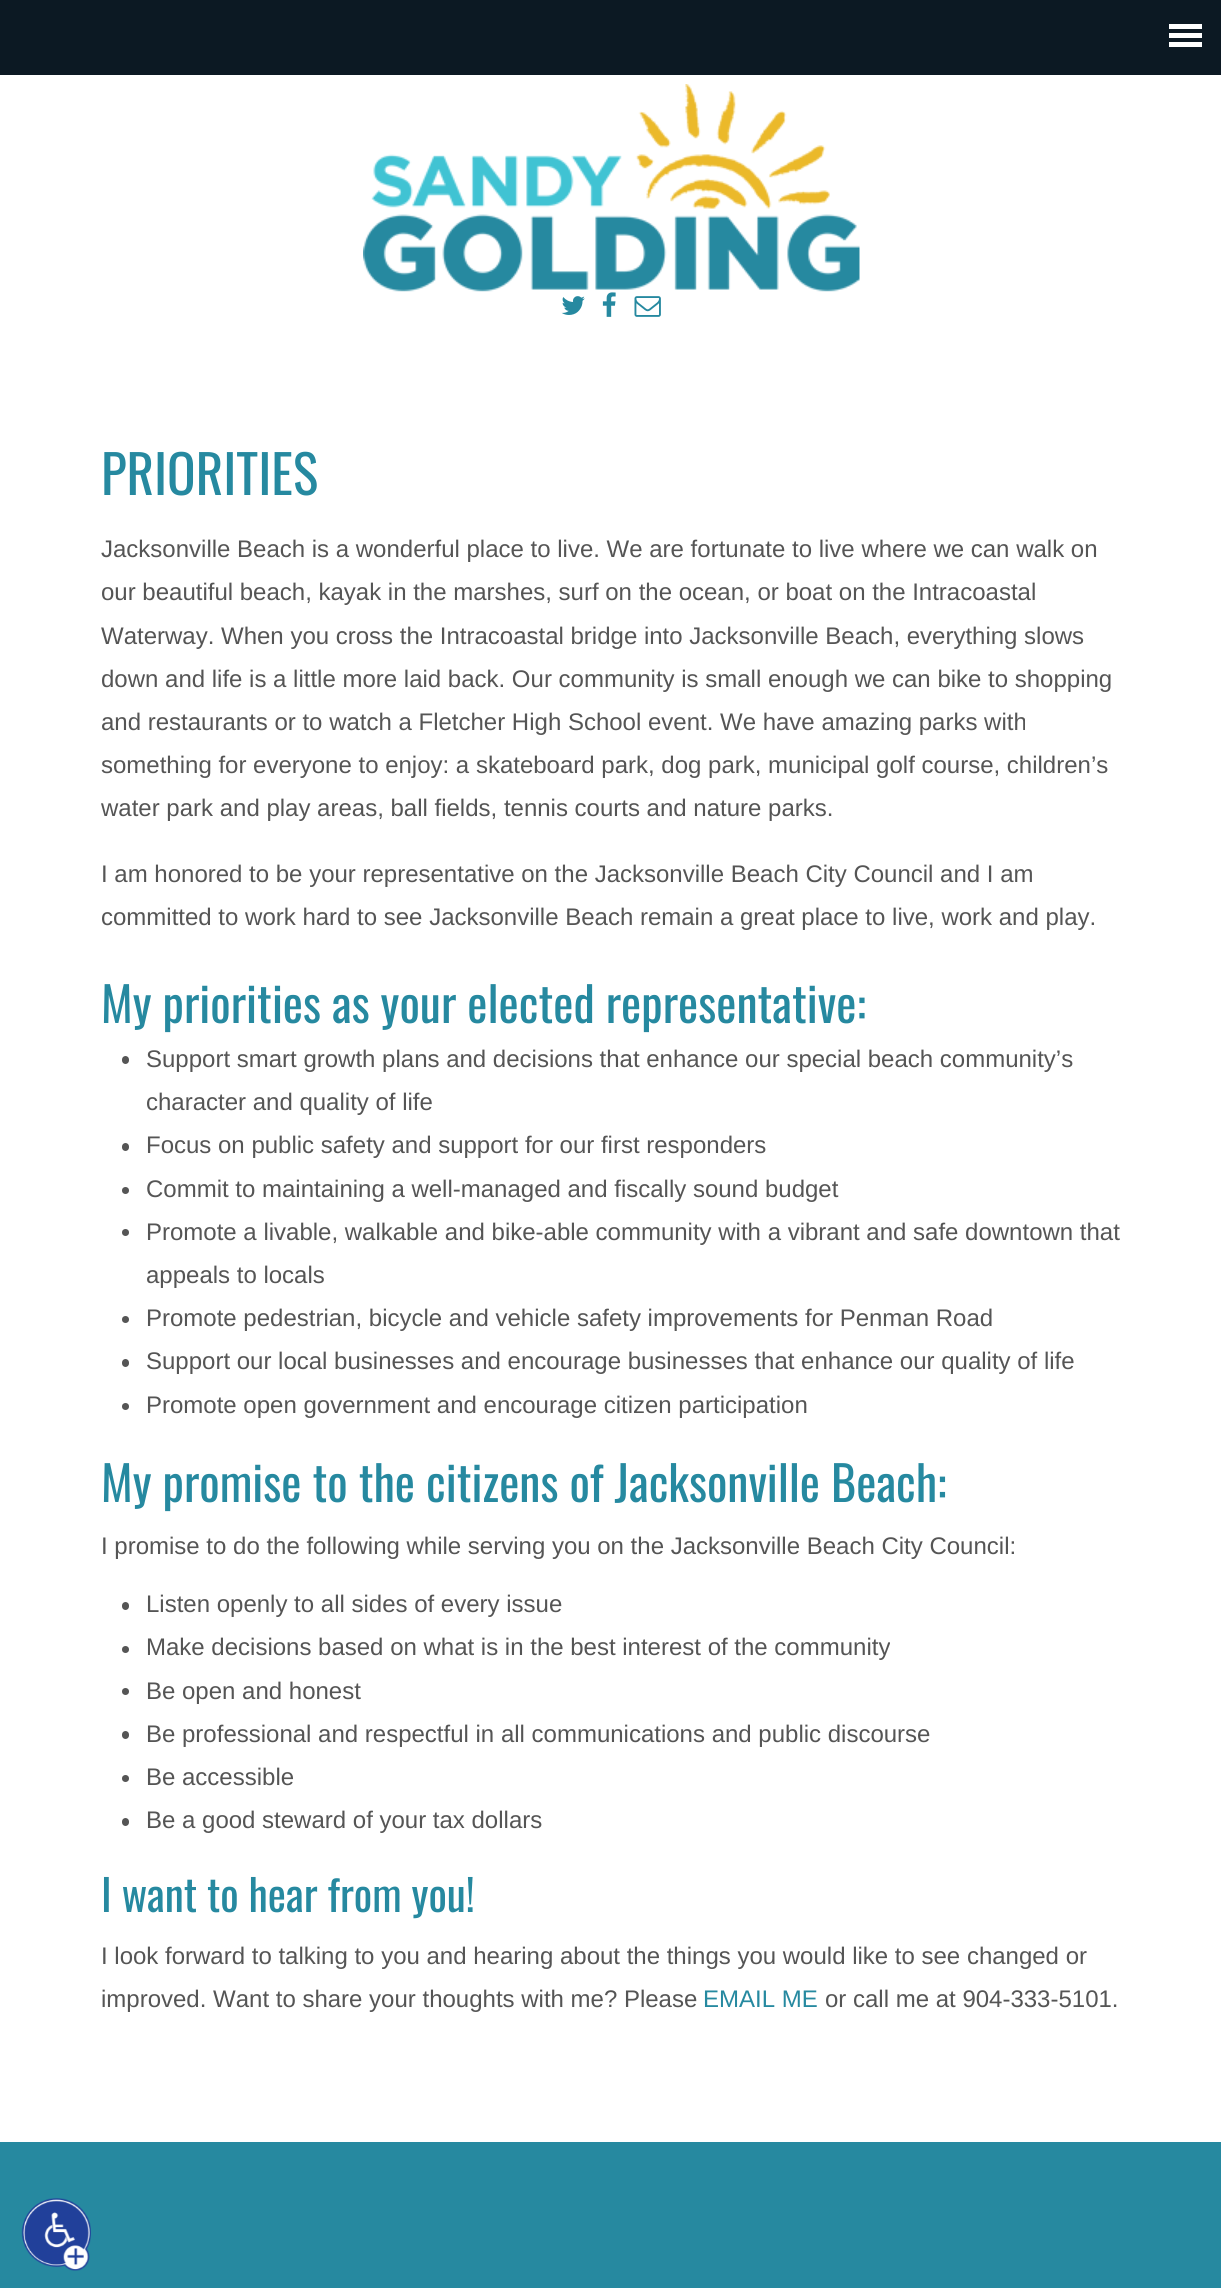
#include <cairo/cairo.h>
#include <math.h>
#include <stddef.h>

typedef struct { double x, y; const char *s; } line_t;
typedef struct { double x, y, w, h; unsigned color; } box_t;
static cairo_t *cr;

static void rgb(unsigned color)
{
	cairo_set_source_rgb(cr, (color >> 16) / 255.0, (color >> 8 & 255) / 255.0, (color & 255) / 255.0);
}

static void rrect(double x, double y, double w, double h, double r)
{
	cairo_new_sub_path(cr);
	cairo_arc(cr, x + w - r, y + h - r, r, 0, M_PI / 2);
	cairo_arc(cr, x + r, y + h - r, r, M_PI / 2, M_PI);
	cairo_arc(cr, x + r, y + r, r, M_PI, 1.5 * M_PI);
	cairo_arc(cr, x + w - r, y + r, r, 1.5 * M_PI, 2 * M_PI);
	cairo_close_path(cr);
}

static void image(const char *path, double x, double y, double w, double h)
{
	cairo_surface_t *image = cairo_image_surface_create_from_png(path);
	cairo_save(cr);
	cairo_set_source_surface(cr, image, x, y);
	cairo_rectangle(cr, x, y, w, h);
	cairo_fill(cr);
	cairo_restore(cr);
	cairo_surface_destroy(image);
}

int main(void) {
	cairo_surface_t *surface = cairo_image_surface_create(CAIRO_FORMAT_RGB24, 1221, 2288);
	cr = cairo_create(surface);
	cairo_font_options_t *options = cairo_font_options_create();
	cairo_font_options_set_hint_metrics(options, CAIRO_HINT_METRICS_OFF);
	cairo_font_options_set_hint_style(options, CAIRO_HINT_STYLE_NONE);
	cairo_set_font_options(cr, options);
	cairo_set_miter_limit(cr, 4);
	rgb(0x2689a0);
	cairo_paint(cr);
	{
		static const box_t items[] = {
			{0, 0, 1221, 75, 0x0c1923},
			{1169, 24, 33, 5, 0xffffff},
			{1169, 33, 33, 5, 0xffffff},
			{1169, 42, 33, 5, 0xffffff},
			{0, 75, 1221, 2067, 0xffffff},
		};
		for (size_t i = 0; i < sizeof items / sizeof *items; i++) {
			rgb(items[i].color);
			cairo_rectangle(cr, items[i].x, items[i].y, items[i].w, items[i].h);
			cairo_fill(cr);
		}
	}
	image("img/1.png", 363, 84, 497, 208);
	image("img/2.png", 561, 296, 24, 19);
	image("img/3.png", 602, 292, 14, 25);
	image("img/4.png", 634, 296, 27, 21);
	rgb(0x555555);
	rrect(122, 1056, 7, 8, 3.5);
	cairo_fill(cr);
	rrect(122, 1143, 7, 8, 3.5);
	cairo_fill(cr);
	cairo_arc(cr, 125.5, 1190.5, 3.5, 0, 2 * M_PI);
	cairo_fill(cr);
	cairo_arc(cr, 125.5, 1232.5, 3.5, 0, 2 * M_PI);
	cairo_fill(cr);
	cairo_arc(cr, 125.5, 1319.5, 3.5, 0, 2 * M_PI);
	cairo_fill(cr);
	rrect(122, 1359, 7, 8, 3.5);
	cairo_fill(cr);
	cairo_arc(cr, 125.5, 1406.5, 3.5, 0, 2 * M_PI);
	cairo_fill(cr);
	rrect(122, 1602, 7, 8, 3.5);
	cairo_fill(cr);
	cairo_arc(cr, 125.5, 1649.5, 3.5, 0, 2 * M_PI);
	cairo_fill(cr);
	cairo_arc(cr, 125.5, 1691.5, 3.5, 0, 2 * M_PI);
	cairo_fill(cr);
	rrect(122, 1731, 7, 8, 3.5);
	cairo_fill(cr);
	cairo_arc(cr, 125.5, 1778.5, 3.5, 0, 2 * M_PI);
	cairo_fill(cr);
	rrect(122, 1818, 7, 8, 3.5);
	cairo_fill(cr);
	image("img/5.png", 21, 2198, 70, 73);
	cairo_select_font_face(cr, "Oswald", CAIRO_FONT_SLANT_NORMAL, CAIRO_FONT_WEIGHT_NORMAL);
	cairo_set_font_size(cr, 53);
	rgb(0x2689a0);
	cairo_move_to(cr, 101, 495);
	cairo_show_text(cr, "PRIORITIES");
	cairo_select_font_face(cr, "Liberation Sans", CAIRO_FONT_SLANT_NORMAL, CAIRO_FONT_WEIGHT_NORMAL);
	cairo_set_font_size(cr, 24);
	rgb(0x555555);
	{
		static const line_t items[] = {
			{101, 557, "Jacksonville Beach is a wonderful place to live. We are fortunate to live where we can walk on"},
			{101, 600, "our beautiful beach, kayak in the marshes, surf on the ocean, or boat on the Intracoastal"},
			{101, 644, "Waterway. When you cross the Intracoastal bridge into Jacksonville Beach, everything slows"},
			{101, 687, "down and life is a little more laid back. Our community is small enough we can bike to shopping"},
			{101, 730, "and restaurants or to watch a Fletcher High School event. We have amazing parks with"},
			{101, 773, "something for everyone to enjoy: a skateboard park, dog park, municipal golf course, children’s"},
			{101, 816, "water park and play areas, ball fields, tennis courts and nature parks."},
			{101, 882, "I am honored to be your representative on the Jacksonville Beach City Council and I am"},
			{101, 925, "committed to work hard to see Jacksonville Beach remain a great place to live, work and play."},
		};
		for (size_t i = 0; i < sizeof items / sizeof *items; i++) {
			cairo_move_to(cr, items[i].x, items[i].y);
			cairo_show_text(cr, items[i].s);
		}
	}
	cairo_select_font_face(cr, "Oswald", CAIRO_FONT_SLANT_NORMAL, CAIRO_FONT_WEIGHT_NORMAL);
	cairo_set_font_size(cr, 48);
	rgb(0x2689a0);
	cairo_move_to(cr, 101, 1023);
	cairo_show_text(cr, "My priorities as your elected representative:");
	cairo_select_font_face(cr, "Liberation Sans", CAIRO_FONT_SLANT_NORMAL, CAIRO_FONT_WEIGHT_NORMAL);
	cairo_set_font_size(cr, 24);
	rgb(0x555555);
	{
		static const line_t items[] = {
			{146, 1067, "Support smart growth plans and decisions that enhance our special beach community’s"},
			{146, 1110, "character and quality of life"},
			{146, 1153, "Focus on public safety and support for our first responders"},
			{146, 1197, "Commit to maintaining a well-managed and fiscally sound budget"},
			{146, 1240, "Promote a livable, walkable and bike-able community with a vibrant and safe downtown that"},
			{146, 1283, "appeals to locals"},
			{146, 1326, "Promote pedestrian, bicycle and vehicle safety improvements for Penman Road"},
			{146, 1369, "Support our local businesses and encourage businesses that enhance our quality of life"},
			{146, 1413, "Promote open government and encourage citizen participation"},
		};
		for (size_t i = 0; i < sizeof items / sizeof *items; i++) {
			cairo_move_to(cr, items[i].x, items[i].y);
			cairo_show_text(cr, items[i].s);
		}
	}
	cairo_select_font_face(cr, "Oswald", CAIRO_FONT_SLANT_NORMAL, CAIRO_FONT_WEIGHT_NORMAL);
	cairo_set_font_size(cr, 48);
	rgb(0x2689a0);
	cairo_move_to(cr, 101, 1502);
	cairo_show_text(cr, "My promise to the citizens of Jacksonville Beach:");
	cairo_select_font_face(cr, "Liberation Sans", CAIRO_FONT_SLANT_NORMAL, CAIRO_FONT_WEIGHT_NORMAL);
	cairo_set_font_size(cr, 24);
	rgb(0x555555);
	{
		static const line_t items[] = {
			{101, 1554, "I promise to do the following while serving you on the Jacksonville Beach City Council:"},
			{146, 1612, "Listen openly to all sides of every issue"},
			{146, 1655, "Make decisions based on what is in the best interest of the community"},
			{146, 1699, "Be open and honest"},
			{146, 1742, "Be professional and respectful in all communications and public discourse"},
			{146, 1785, "Be accessible"},
			{146, 1828, "Be a good steward of your tax dollars"},
		};
		for (size_t i = 0; i < sizeof items / sizeof *items; i++) {
			cairo_move_to(cr, items[i].x, items[i].y);
			cairo_show_text(cr, items[i].s);
		}
	}
	cairo_select_font_face(cr, "Oswald", CAIRO_FONT_SLANT_NORMAL, CAIRO_FONT_WEIGHT_NORMAL);
	cairo_set_font_size(cr, 43.25);
	rgb(0x2689a0);
	cairo_move_to(cr, 101, 1912);
	cairo_show_text(cr, "I want to hear from you!");
	cairo_select_font_face(cr, "Liberation Sans", CAIRO_FONT_SLANT_NORMAL, CAIRO_FONT_WEIGHT_NORMAL);
	cairo_set_font_size(cr, 24);
	rgb(0x555555);
	cairo_move_to(cr, 101, 1964);
	cairo_show_text(cr, "I look forward to talking to you and hearing about the things you would like to see changed or");
	cairo_move_to(cr, 101, 2007);
	cairo_show_text(cr, "improved. Want to share your thoughts with me? Please");
	rgb(0x2689a0);
	cairo_move_to(cr, 703, 2007);
	cairo_show_text(cr, "EMAIL ME");
	rgb(0x555555);
	cairo_move_to(cr, 825, 2007);
	cairo_show_text(cr, "or call me at 904-333-5101.");
	cairo_surface_write_to_png(surface, "page.png");
	cairo_font_options_destroy(options);
	cairo_destroy(cr);
	cairo_surface_destroy(surface);
	return 0;
}
